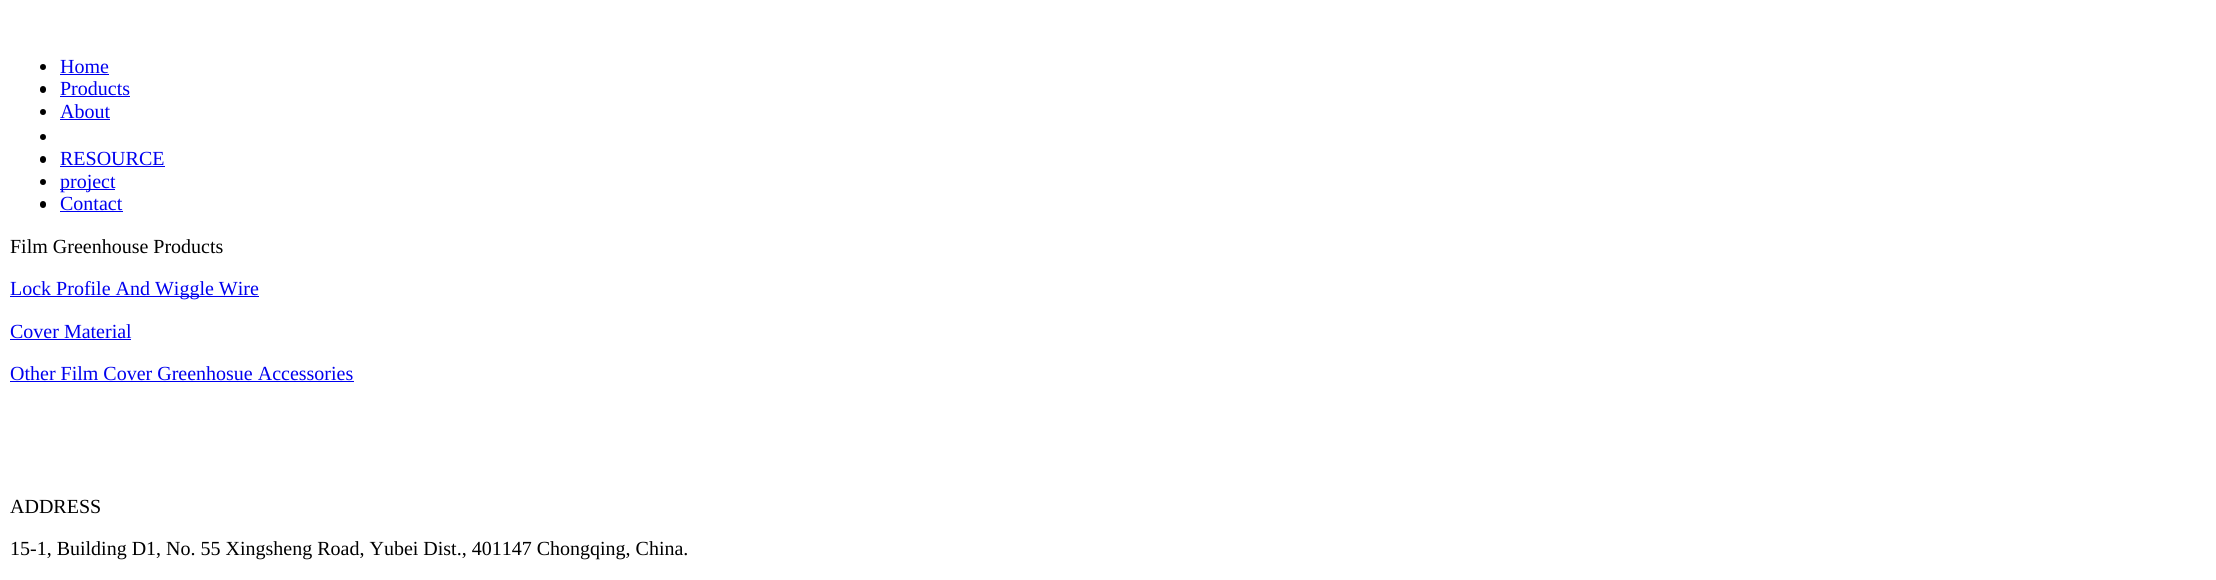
#include <cairo/cairo.h>
#include <math.h>
#include <stddef.h>

typedef struct { double x, y; const char *s; } line_t;
typedef struct { double x, y, w, h; unsigned color; } box_t;
static cairo_t *cr;

static void rgb(unsigned color)
{
	cairo_set_source_rgb(cr, (color >> 16) / 255.0, (color >> 8 & 255) / 255.0, (color & 255) / 255.0);
}

static void rrect(double x, double y, double w, double h, double r)
{
	cairo_new_sub_path(cr);
	cairo_arc(cr, x + w - r, y + h - r, r, 0, M_PI / 2);
	cairo_arc(cr, x + r, y + h - r, r, M_PI / 2, M_PI);
	cairo_arc(cr, x + r, y + r, r, M_PI, 1.5 * M_PI);
	cairo_arc(cr, x + w - r, y + r, r, 1.5 * M_PI, 2 * M_PI);
	cairo_close_path(cr);
}

int main(void) {
	cairo_surface_t *surface = cairo_image_surface_create(CAIRO_FORMAT_RGB24, 2216, 580);
	cr = cairo_create(surface);
	cairo_font_options_t *options = cairo_font_options_create();
	cairo_font_options_set_hint_metrics(options, CAIRO_HINT_METRICS_OFF);
	cairo_font_options_set_hint_style(options, CAIRO_HINT_STYLE_NONE);
	cairo_set_font_options(cr, options);
	cairo_set_miter_limit(cr, 4);
	rgb(0xffffff);
	cairo_paint(cr);
	rgb(0x000000);
	cairo_arc(cr, 43, 67, 3, 0, 2 * M_PI);
	cairo_fill(cr);
	rgb(0x0000ee);
	cairo_rectangle(cr, 60, 74, 49, 1);
	cairo_fill(cr);
	rgb(0x000000);
	rrect(40, 86, 6, 7, 3);
	cairo_fill(cr);
	rgb(0x0000ee);
	cairo_rectangle(cr, 60, 96, 70, 1);
	cairo_fill(cr);
	rgb(0x000000);
	cairo_arc(cr, 43, 112, 3, 0, 2 * M_PI);
	cairo_fill(cr);
	rgb(0x0000ee);
	cairo_rectangle(cr, 60, 119, 50, 1);
	cairo_fill(cr);
	rgb(0x000000);
	cairo_arc(cr, 43, 137, 3, 0, 2 * M_PI);
	cairo_fill(cr);
	rrect(40, 156, 6, 7, 3);
	cairo_fill(cr);
	rgb(0x0000ee);
	cairo_rectangle(cr, 60, 166, 105, 1);
	cairo_fill(cr);
	rgb(0x000000);
	cairo_arc(cr, 43, 182, 3, 0, 2 * M_PI);
	cairo_fill(cr);
	rgb(0x0000ee);
	cairo_rectangle(cr, 60, 189, 55, 1);
	cairo_fill(cr);
	rgb(0x000000);
	rrect(40, 201, 6, 7, 3);
	cairo_fill(cr);
	{
		static const box_t items[] = {
			{60, 211, 63, 1, 0x0000ee},
			{10, 296, 249, 1, 0x0000ee},
			{10, 339, 121, 1, 0x0000ee},
			{10, 381, 344, 1, 0x0000ee},
		};
		for (size_t i = 0; i < sizeof items / sizeof *items; i++) {
			rgb(items[i].color);
			cairo_rectangle(cr, items[i].x, items[i].y, items[i].w, items[i].h);
			cairo_fill(cr);
		}
	}
	cairo_select_font_face(cr, "Liberation Serif", CAIRO_FONT_SLANT_NORMAL, CAIRO_FONT_WEIGHT_NORMAL);
	cairo_set_font_size(cr, 20);
	{
		static const line_t items[] = {
			{60, 73, "Home"},
			{60, 95, "Products"},
			{60, 118, "About"},
			{60, 165, "RESOURCE"},
			{60, 188, "project"},
			{60, 210, "Contact"},
		};
		for (size_t i = 0; i < sizeof items / sizeof *items; i++) {
			cairo_move_to(cr, items[i].x, items[i].y);
			cairo_show_text(cr, items[i].s);
		}
	}
	rgb(0x000000);
	cairo_move_to(cr, 10, 253);
	cairo_show_text(cr, "Film Greenhouse Products");
	rgb(0x0000ee);
	{
		static const line_t items[] = {
			{10, 295, "Lock Profile And Wiggle Wire"},
			{10, 338, "Cover Material"},
			{10, 380, "Other Film Cover Greenhosue Accessories"},
		};
		for (size_t i = 0; i < sizeof items / sizeof *items; i++) {
			cairo_move_to(cr, items[i].x, items[i].y);
			cairo_show_text(cr, items[i].s);
		}
	}
	rgb(0x000000);
	cairo_move_to(cr, 10, 513);
	cairo_show_text(cr, "ADDRESS");
	cairo_move_to(cr, 10, 555);
	cairo_show_text(cr, "15-1, Building D1, No. 55 Xingsheng Road, Yubei Dist., 401147 Chongqing, China.");
	cairo_surface_write_to_png(surface, "page.png");
	cairo_font_options_destroy(options);
	cairo_destroy(cr);
	cairo_surface_destroy(surface);
	return 0;
}
